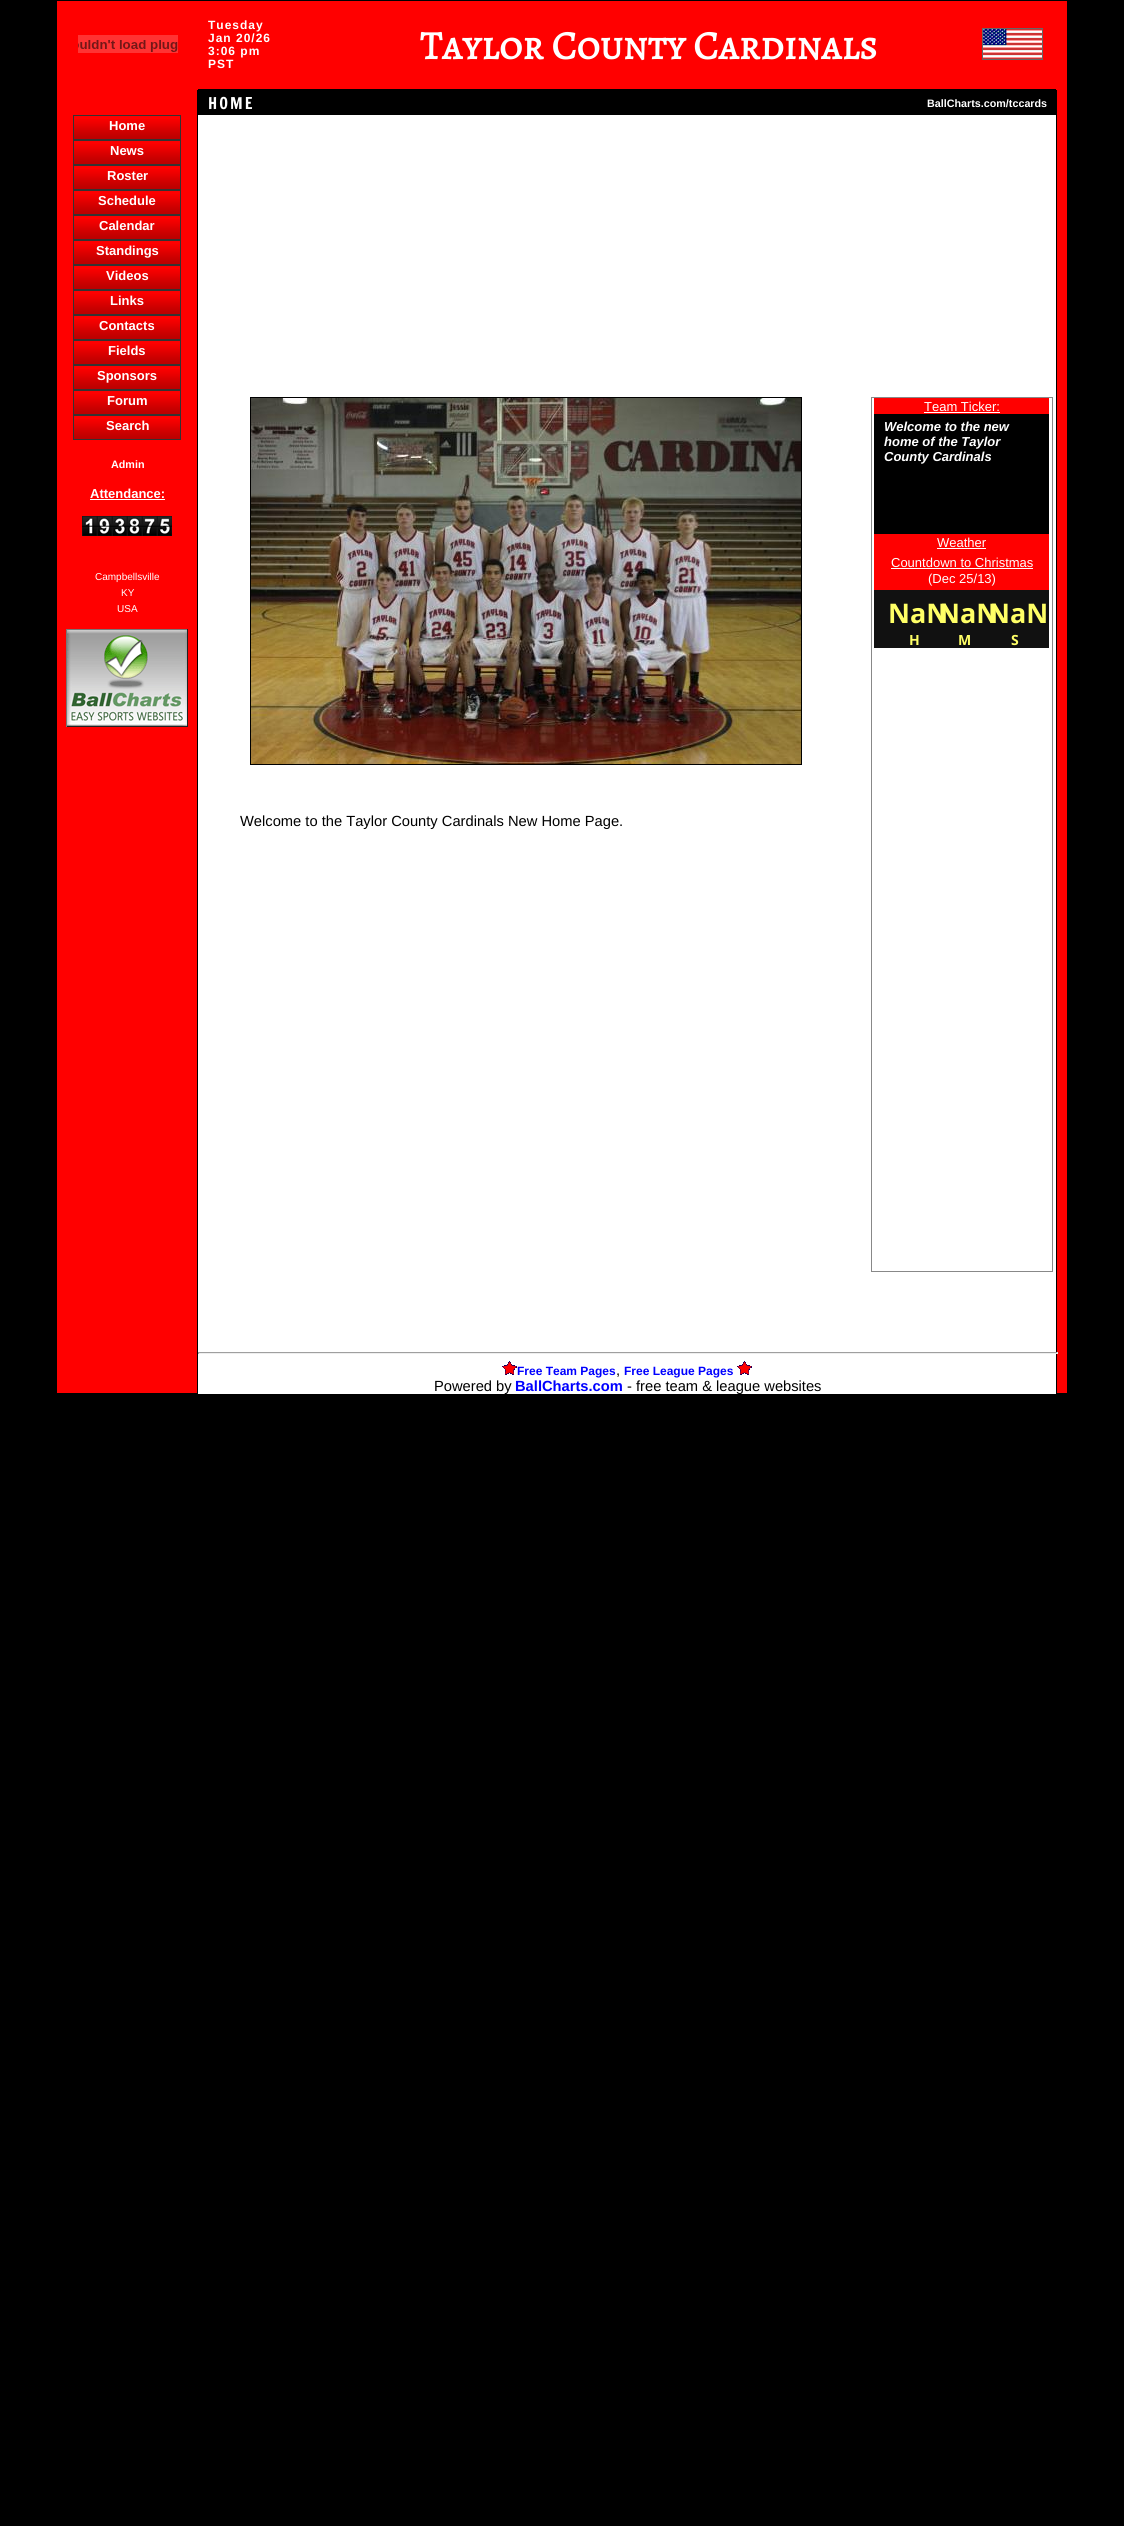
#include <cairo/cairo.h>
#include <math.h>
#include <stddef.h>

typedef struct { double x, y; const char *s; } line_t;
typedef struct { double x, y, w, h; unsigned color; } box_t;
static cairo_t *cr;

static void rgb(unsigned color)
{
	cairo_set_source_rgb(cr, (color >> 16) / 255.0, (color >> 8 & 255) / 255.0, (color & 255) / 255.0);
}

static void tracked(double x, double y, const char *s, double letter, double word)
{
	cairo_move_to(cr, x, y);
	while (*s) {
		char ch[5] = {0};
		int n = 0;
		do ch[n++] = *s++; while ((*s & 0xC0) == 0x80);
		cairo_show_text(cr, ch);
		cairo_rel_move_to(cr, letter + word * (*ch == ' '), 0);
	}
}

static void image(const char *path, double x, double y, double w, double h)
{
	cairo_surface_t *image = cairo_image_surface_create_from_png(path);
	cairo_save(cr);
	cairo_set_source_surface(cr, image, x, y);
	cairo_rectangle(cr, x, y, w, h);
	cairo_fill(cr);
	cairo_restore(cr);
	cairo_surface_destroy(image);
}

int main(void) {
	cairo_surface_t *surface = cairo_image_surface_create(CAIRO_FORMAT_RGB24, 1124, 2526);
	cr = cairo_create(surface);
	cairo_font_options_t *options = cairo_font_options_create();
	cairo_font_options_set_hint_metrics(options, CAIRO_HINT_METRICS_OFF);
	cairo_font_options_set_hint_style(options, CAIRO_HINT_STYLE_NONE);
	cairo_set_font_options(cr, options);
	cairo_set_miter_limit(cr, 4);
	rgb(0x000000);
	cairo_paint(cr);
	rgb(0xff0000);
	cairo_rectangle(cr, 57, 1, 141, 89);
	cairo_fill(cr);
	image("img/1.png", 78, 35, 100, 18);
	cairo_rectangle(cr, 198, 1, 858, 88);
	cairo_fill(cr);
	image("img/2.png", 982, 28, 61, 32);
	{
		static const box_t items[] = {
			{1056, 1, 11, 89, 0xff0000},
			{57, 90, 140, 1303, 0xff0000},
			{1057, 90, 10, 1303, 0xff0000},
		};
		for (size_t i = 0; i < sizeof items / sizeof *items; i++) {
			rgb(items[i].color);
			cairo_rectangle(cr, items[i].x, items[i].y, items[i].w, items[i].h);
			cairo_fill(cr);
		}
	}
	cairo_rectangle(cr, 73.5, 115.5, 107, 24);
	rgb(0x333333);
	cairo_set_line_width(cr, 1);
	cairo_stroke(cr);
	image("img/3.png", 74, 119, 106, 20);
	cairo_rectangle(cr, 73.5, 140.5, 107, 24);
	cairo_stroke(cr);
	image("img/3.png", 74, 144, 106, 20);
	cairo_rectangle(cr, 73.5, 165.5, 107, 24);
	cairo_stroke(cr);
	image("img/3.png", 74, 169, 106, 20);
	cairo_rectangle(cr, 73.5, 190.5, 107, 24);
	cairo_stroke(cr);
	image("img/3.png", 74, 194, 106, 20);
	cairo_rectangle(cr, 73.5, 215.5, 107, 24);
	cairo_stroke(cr);
	image("img/3.png", 74, 219, 106, 20);
	cairo_rectangle(cr, 73.5, 240.5, 107, 24);
	cairo_stroke(cr);
	image("img/3.png", 74, 244, 106, 20);
	cairo_rectangle(cr, 73.5, 265.5, 107, 24);
	cairo_stroke(cr);
	image("img/3.png", 74, 269, 106, 20);
	cairo_rectangle(cr, 73.5, 290.5, 107, 24);
	cairo_stroke(cr);
	image("img/3.png", 74, 294, 106, 20);
	cairo_rectangle(cr, 73.5, 315.5, 107, 24);
	cairo_stroke(cr);
	image("img/3.png", 74, 319, 106, 20);
	cairo_rectangle(cr, 73.5, 340.5, 107, 24);
	cairo_stroke(cr);
	image("img/3.png", 74, 344, 106, 20);
	cairo_rectangle(cr, 73.5, 365.5, 107, 24);
	cairo_stroke(cr);
	image("img/3.png", 74, 369, 106, 20);
	cairo_rectangle(cr, 73.5, 390.5, 107, 24);
	cairo_stroke(cr);
	image("img/3.png", 74, 394, 106, 20);
	cairo_rectangle(cr, 73.5, 415.5, 107, 24);
	cairo_stroke(cr);
	image("img/3.png", 74, 419, 106, 20);
	rgb(0xffffff);
	cairo_rectangle(cr, 90, 499, 75, 1);
	cairo_fill(cr);
	image("img/4.png", 82, 516, 15, 20);
	image("img/5.png", 97, 516, 15, 20);
	image("img/6.png", 112, 516, 15, 20);
	image("img/7.png", 127, 516, 15, 20);
	image("img/8.png", 142, 516, 15, 20);
	image("img/9.png", 157, 516, 15, 20);
	{
		static const box_t items[] = {
			{66, 629, 122, 1, 0x777777},
			{187, 629, 1, 98, 0x222222},
			{66, 726, 122, 1, 0x222222},
			{66, 629, 1, 98, 0x777777},
		};
		for (size_t i = 0; i < sizeof items / sizeof *items; i++) {
			rgb(items[i].color);
			cairo_rectangle(cr, items[i].x, items[i].y, items[i].w, items[i].h);
			cairo_fill(cr);
		}
	}
	image("img/10.png", 67, 630, 120, 96);
	rgb(0xffffff);
	cairo_rectangle(cr, 198, 115, 858, 1279);
	cairo_fill(cr);
	cairo_rectangle(cr, 250.5, 397.5, 551, 367);
	rgb(0x000000);
	cairo_stroke(cr);
	image("img/11.png", 251, 398, 550, 366);
	cairo_rectangle(cr, 871.5, 397.5, 181, 874);
	rgb(0x888888);
	cairo_stroke(cr);
	{
		static const box_t items[] = {
			{874, 398, 175, 16, 0xff0000},
			{924, 412, 76, 1, 0xffffff},
			{874, 414, 175, 120, 0x000000},
			{874, 534, 175, 56, 0xff0000},
			{937, 548, 49, 1, 0xffffff},
			{891, 568, 142, 1, 0xffffff},
			{874, 590, 175, 58, 0x111111},
			{198, 1352, 860, 1, 0x9f9f9f},
			{1057, 1352, 1, 2, 0xeeeeee},
			{198, 1353, 860, 1, 0xeeeeee},
			{198, 1352, 1, 2, 0x9f9f9f},
		};
		for (size_t i = 0; i < sizeof items / sizeof *items; i++) {
			rgb(items[i].color);
			cairo_rectangle(cr, items[i].x, items[i].y, items[i].w, items[i].h);
			cairo_fill(cr);
		}
	}
	image("img/12.png", 502, 1361, 15, 14);
	image("img/12.png", 737, 1361, 15, 14);
	cairo_select_font_face(cr, "Liberation Sans", CAIRO_FONT_SLANT_NORMAL, CAIRO_FONT_WEIGHT_BOLD);
	cairo_set_font_size(cr, 12);
	rgb(0xffffff);
	{
		static const line_t items[] = {
			{208, 29, "Tuesday"},
			{208, 42, "Jan 20/26"},
			{208, 55, "3:06 pm"},
			{208, 68, "PST"},
		};
		for (size_t i = 0; i < sizeof items / sizeof *items; i++) {
			tracked(items[i].x, items[i].y, items[i].s, 1, 0);
		}
	}
	cairo_select_font_face(cr, "Alegreya SC", CAIRO_FONT_SLANT_NORMAL, CAIRO_FONT_WEIGHT_BOLD);
	cairo_set_font_size(cr, 40);
	cairo_move_to(cr, 420, 59);
	cairo_show_text(cr, "Taylor County Cardinals");
	cairo_select_font_face(cr, "Francois One", CAIRO_FONT_SLANT_NORMAL, CAIRO_FONT_WEIGHT_NORMAL);
	cairo_set_font_size(cr, 16);
	tracked(208, 109, "HOME", 2, 0);
	cairo_select_font_face(cr, "Liberation Sans", CAIRO_FONT_SLANT_NORMAL, CAIRO_FONT_WEIGHT_BOLD);
	cairo_set_font_size(cr, 10.75);
	cairo_move_to(cr, 927, 107);
	cairo_show_text(cr, "BallCharts.com/tccards");
	cairo_set_font_size(cr, 13);
	{
		static const line_t items[] = {
			{109, 130, "Home"},
			{110, 155, "News"},
			{107, 180, "Roster"},
			{98, 205, "Schedule"},
			{99, 230, "Calendar"},
			{96, 255, "Standings"},
			{106, 280, "Videos"},
			{110, 305, "Links"},
			{99, 330, "Contacts"},
			{108, 355, "Fields"},
			{97, 380, "Sponsors"},
			{107, 405, "Forum"},
			{106, 430, "Search"},
		};
		for (size_t i = 0; i < sizeof items / sizeof *items; i++) {
			cairo_move_to(cr, items[i].x, items[i].y);
			cairo_show_text(cr, items[i].s);
		}
	}
	cairo_set_font_size(cr, 10.75);
	cairo_move_to(cr, 111, 468);
	cairo_show_text(cr, "Admin");
	cairo_set_font_size(cr, 13);
	cairo_move_to(cr, 90, 498);
	cairo_show_text(cr, "Attendance:");
	cairo_select_font_face(cr, "Liberation Sans", CAIRO_FONT_SLANT_NORMAL, CAIRO_FONT_WEIGHT_NORMAL);
	cairo_set_font_size(cr, 10);
	{
		static const line_t items[] = {
			{95, 580, "Campbellsville"},
			{121, 596, "KY"},
			{117, 612, "USA"},
		};
		for (size_t i = 0; i < sizeof items / sizeof *items; i++) {
			cairo_move_to(cr, items[i].x, items[i].y);
			cairo_show_text(cr, items[i].s);
		}
	}
	cairo_set_font_size(cr, 13);
	cairo_move_to(cr, 924, 411);
	cairo_show_text(cr, "Team Ticker:");
	cairo_select_font_face(cr, "Liberation Sans", CAIRO_FONT_SLANT_ITALIC, CAIRO_FONT_WEIGHT_BOLD);
	{
		static const line_t items[] = {
			{884, 431, "Welcome to the new"},
			{884, 446, "home of the Taylor"},
			{884, 461, "County Cardinals"},
		};
		for (size_t i = 0; i < sizeof items / sizeof *items; i++) {
			cairo_move_to(cr, items[i].x, items[i].y);
			cairo_show_text(cr, items[i].s);
		}
	}
	cairo_select_font_face(cr, "Liberation Sans", CAIRO_FONT_SLANT_NORMAL, CAIRO_FONT_WEIGHT_NORMAL);
	{
		static const line_t items[] = {
			{937, 547, "Weather"},
			{891, 567, "Countdown to Christmas"},
			{928, 583, "(Dec 25/13)"},
		};
		for (size_t i = 0; i < sizeof items / sizeof *items; i++) {
			cairo_move_to(cr, items[i].x, items[i].y);
			cairo_show_text(cr, items[i].s);
		}
	}
	cairo_select_font_face(cr, "Open Sans", CAIRO_FONT_SLANT_NORMAL, CAIRO_FONT_WEIGHT_BOLD);
	cairo_set_font_size(cr, 27);
	rgb(0xffff66);
	cairo_move_to(cr, 888, 623);
	cairo_show_text(cr, "NaN");
	cairo_set_font_size(cr, 14);
	cairo_move_to(cr, 909, 645);
	cairo_show_text(cr, "H");
	cairo_set_font_size(cr, 27);
	cairo_move_to(cr, 938, 623);
	cairo_show_text(cr, "NaN");
	cairo_set_font_size(cr, 14);
	cairo_move_to(cr, 958, 645);
	cairo_show_text(cr, "M");
	cairo_set_font_size(cr, 27);
	cairo_move_to(cr, 988, 623);
	cairo_show_text(cr, "NaN");
	cairo_set_font_size(cr, 14);
	cairo_move_to(cr, 1011, 645);
	cairo_show_text(cr, "S");
	cairo_select_font_face(cr, "Liberation Sans", CAIRO_FONT_SLANT_NORMAL, CAIRO_FONT_WEIGHT_NORMAL);
	cairo_set_font_size(cr, 14.7);
	rgb(0x000000);
	cairo_move_to(cr, 240, 826);
	cairo_show_text(cr, "Welcome to the Taylor County Cardinals New Home Page.");
	cairo_select_font_face(cr, "Liberation Sans", CAIRO_FONT_SLANT_NORMAL, CAIRO_FONT_WEIGHT_BOLD);
	cairo_set_font_size(cr, 12);
	rgb(0x0000ff);
	cairo_move_to(cr, 517, 1375);
	cairo_show_text(cr, "Free Team Pages");
	cairo_select_font_face(cr, "Liberation Sans", CAIRO_FONT_SLANT_NORMAL, CAIRO_FONT_WEIGHT_NORMAL);
	cairo_set_font_size(cr, 14.7);
	rgb(0x000000);
	cairo_move_to(cr, 616, 1375);
	cairo_show_text(cr, ",");
	cairo_select_font_face(cr, "Liberation Sans", CAIRO_FONT_SLANT_NORMAL, CAIRO_FONT_WEIGHT_BOLD);
	cairo_set_font_size(cr, 12);
	rgb(0x0000ff);
	cairo_move_to(cr, 624, 1375);
	cairo_show_text(cr, "Free League Pages");
	cairo_select_font_face(cr, "Liberation Sans", CAIRO_FONT_SLANT_NORMAL, CAIRO_FONT_WEIGHT_NORMAL);
	cairo_set_font_size(cr, 14.7);
	rgb(0x000000);
	cairo_move_to(cr, 434, 1391);
	cairo_show_text(cr, "Powered by");
	cairo_select_font_face(cr, "Liberation Sans", CAIRO_FONT_SLANT_NORMAL, CAIRO_FONT_WEIGHT_BOLD);
	rgb(0x0000ff);
	cairo_move_to(cr, 515, 1391);
	cairo_show_text(cr, "BallCharts.com");
	cairo_select_font_face(cr, "Liberation Sans", CAIRO_FONT_SLANT_NORMAL, CAIRO_FONT_WEIGHT_NORMAL);
	rgb(0x000000);
	cairo_move_to(cr, 627, 1391);
	cairo_show_text(cr, "- free team & league websites");
	cairo_surface_write_to_png(surface, "page.png");
	cairo_font_options_destroy(options);
	cairo_destroy(cr);
	cairo_surface_destroy(surface);
	return 0;
}
